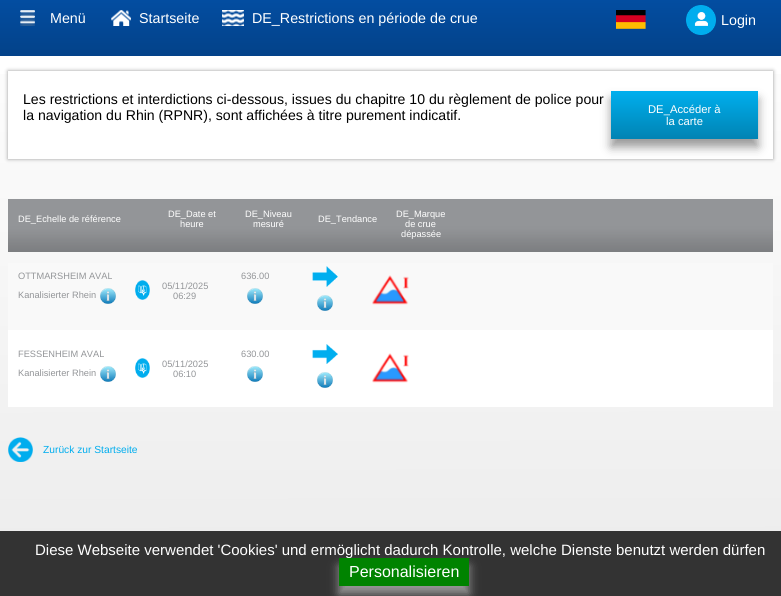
#include <cairo/cairo.h>
#include <math.h>
#include <stddef.h>

typedef struct { double x, y; const char *s; } line_t;
static cairo_t *cr;

static void rgb(unsigned color)
{
	cairo_set_source_rgb(cr, (color >> 16) / 255.0, (color >> 8 & 255) / 255.0, (color & 255) / 255.0);
}

static void rrect(double x, double y, double w, double h, double r)
{
	cairo_new_sub_path(cr);
	cairo_arc(cr, x + w - r, y + h - r, r, 0, M_PI / 2);
	cairo_arc(cr, x + r, y + h - r, r, M_PI / 2, M_PI);
	cairo_arc(cr, x + r, y + r, r, M_PI, 1.5 * M_PI);
	cairo_arc(cr, x + w - r, y + r, r, 1.5 * M_PI, 2 * M_PI);
	cairo_close_path(cr);
}

static void soft_shadow(double x, double y, double w, double h, double r, double blur, double alpha)
{
	cairo_push_group_with_content(cr, CAIRO_CONTENT_ALPHA);
	cairo_set_operator(cr, CAIRO_OPERATOR_SOURCE);
	for (int i = 15; i >= -15 && fmin(w, h) + blur * i / 3 > 0; i -= 2) {
		double e = blur * i / 6;
		cairo_set_source_rgba(cr, 0, 0, 0, alpha * erfc((i - 1) / 8.5) / 2);
		rrect(x - e, y - e, w + 2 * e, h + 2 * e, fmax(0, fmin(r + e + blur * .6, fmin(w, h) / 2 + e)));
		cairo_fill(cr);
	}
	cairo_pattern_t *soft = cairo_pop_group(cr);
	cairo_mask(cr, soft);
	cairo_pattern_destroy(soft);
}

static void image(const char *path, double x, double y, double w, double h)
{
	cairo_surface_t *image = cairo_image_surface_create_from_png(path);
	cairo_save(cr);
	cairo_set_source_surface(cr, image, x, y);
	cairo_rectangle(cr, x, y, w, h);
	cairo_fill(cr);
	cairo_restore(cr);
	cairo_surface_destroy(image);
}

int main(void) {
	cairo_surface_t *surface = cairo_image_surface_create(CAIRO_FORMAT_RGB24, 781, 596);
	cr = cairo_create(surface);
	cairo_font_options_t *options = cairo_font_options_create();
	cairo_font_options_set_hint_metrics(options, CAIRO_HINT_METRICS_OFF);
	cairo_font_options_set_hint_style(options, CAIRO_HINT_STYLE_NONE);
	cairo_set_font_options(cr, options);
	cairo_set_miter_limit(cr, 4);
	cairo_pattern_t *gradient;
	rgb(0xffffff);
	cairo_paint(cr);
	gradient = cairo_pattern_create_linear(390, 0, 391, 596);
	cairo_pattern_add_color_stop_rgba(gradient, 0, 1, 1, 1, 1);
	cairo_pattern_add_color_stop_rgba(gradient, 0.25, 0.98, 0.98, 0.98, 1);
	cairo_pattern_add_color_stop_rgba(gradient, 0.47, 0.965, 0.965, 0.965, 1);
	cairo_pattern_add_color_stop_rgba(gradient, 1, 0.922, 0.922, 0.922, 1);
	cairo_set_source(cr, gradient);
	cairo_pattern_destroy(gradient);
	cairo_rectangle(cr, 0, 74, 781, 457);
	cairo_fill(cr);
	gradient = cairo_pattern_create_linear(391, 0, 391, 56);
	cairo_pattern_add_color_stop_rgba(gradient, 0, 0.012, 0.302, 0.631, 1);
	cairo_pattern_add_color_stop_rgba(gradient, 1, 0.012, 0.259, 0.537, 1);
	cairo_set_source(cr, gradient);
	cairo_pattern_destroy(gradient);
	cairo_rectangle(cr, 0, 0, 781, 56);
	cairo_fill(cr);
	image("img/1.png", 20, 10, 15, 16);
	image("img/2.png", 111, 10, 20, 16);
	image("img/3.png", 222, 10, 22, 16);
	image("img/4.png", 616, 10, 30, 19);
	image("img/5.png", 686, 5, 30, 30);
	rgb(0x999999);
	soft_shadow(8, 71, 765, 88, 0, 2, 1);
	rgb(0xffffff);
	cairo_rectangle(cr, 8, 71, 765, 88);
	cairo_fill(cr);
	rgb(0x999999);
	soft_shadow(611, 99, 147, 48, 0, 5, 1);
	gradient = cairo_pattern_create_linear(685, 91, 685, 139);
	cairo_pattern_add_color_stop_rgba(gradient, 0, 0, 0.686, 0.933, 1);
	cairo_pattern_add_color_stop_rgba(gradient, 1, 0, 0.514, 0.702, 1);
	cairo_set_source(cr, gradient);
	cairo_pattern_destroy(gradient);
	cairo_rectangle(cr, 611, 91, 147, 48);
	cairo_fill(cr);
	image("img/6.png", 8, 199, 765, 53);
	rgb(0xf9f9f9);
	cairo_rectangle(cr, 8, 263, 765, 67);
	cairo_fill(cr);
	image("img/7.png", 100, 288, 16, 16);
	image("img/8.png", 135, 280, 15, 20);
	image("img/7.png", 247, 288, 16, 16);
	image("img/9.png", 312, 266, 26, 21);
	image("img/7.png", 317, 295, 16, 16);
	image("img/10.png", 372, 275, 37, 30);
	rgb(0xffffff);
	cairo_rectangle(cr, 8, 330, 765, 77);
	cairo_fill(cr);
	image("img/11.png", 100, 366, 16, 16);
	image("img/12.png", 135, 358, 15, 20);
	image("img/11.png", 247, 366, 16, 16);
	image("img/13.png", 312, 344, 26, 20);
	image("img/11.png", 317, 372, 16, 16);
	image("img/14.png", 372, 353, 37, 30);
	image("img/15.png", 8, 437, 25, 25);
	rgb(0x333333);
	cairo_rectangle(cr, 0, 531, 781, 65);
	cairo_fill(cr);
	rgb(0x999999);
	soft_shadow(339, 566, 130, 28, 0, 5, 1);
	cairo_select_font_face(cr, "Liberation Sans", CAIRO_FONT_SLANT_NORMAL, CAIRO_FONT_WEIGHT_NORMAL);
	cairo_set_font_size(cr, 14.3);
	rgb(0xffffff);
	{
		static const line_t items[] = {
			{50, 23, "Menü"},
			{139, 23, "Startseite"},
			{252, 23, "DE_Restrictions en période de crue"},
			{721, 25, "Login"},
		};
		for (size_t i = 0; i < sizeof items / sizeof *items; i++) {
			cairo_move_to(cr, items[i].x, items[i].y);
			cairo_show_text(cr, items[i].s);
		}
	}
	cairo_set_font_size(cr, 14.1);
	rgb(0x000000);
	cairo_move_to(cr, 23, 104);
	cairo_show_text(cr, "Les restrictions et interdictions ci-dessous, issues du chapitre 10 du règlement de police pour");
	cairo_move_to(cr, 23, 120);
	cairo_show_text(cr, "la navigation du Rhin (RPNR), sont affichées à titre purement indicatif.");
	cairo_set_font_size(cr, 11.25);
	rgb(0xffffff);
	cairo_move_to(cr, 648, 113);
	cairo_show_text(cr, "DE_Accéder à");
	cairo_move_to(cr, 666, 125);
	cairo_show_text(cr, "la carte");
	cairo_set_font_size(cr, 9.25);
	{
		static const line_t items[] = {
			{18, 222, "DE_Echelle de référence"},
			{168, 217, "DE_Date et"},
			{180, 227, "heure"},
			{245, 217, "DE_Niveau"},
			{253, 227, "mesuré"},
			{318, 222, "DE_Tendance"},
			{396, 217, "DE_Marque"},
			{405, 227, "de crue"},
			{401, 237, "dépassée"},
		};
		for (size_t i = 0; i < sizeof items / sizeof *items; i++) {
			cairo_move_to(cr, items[i].x, items[i].y);
			cairo_show_text(cr, items[i].s);
		}
	}
	rgb(0x939598);
	{
		static const line_t items[] = {
			{18, 279, "OTTMARSHEIM AVAL"},
			{18, 298, "Kanalisierter Rhein"},
			{162, 289, "05/11/2025"},
			{173, 299, "06:29"},
			{241, 279, "636.00"},
			{18, 357, "FESSENHEIM AVAL"},
			{18, 376, "Kanalisierter Rhein"},
			{162, 367, "05/11/2025"},
			{173, 377, "06:10"},
			{241, 357, "630.00"},
		};
		for (size_t i = 0; i < sizeof items / sizeof *items; i++) {
			cairo_move_to(cr, items[i].x, items[i].y);
			cairo_show_text(cr, items[i].s);
		}
	}
	cairo_set_font_size(cr, 10.25);
	rgb(0x00adee);
	cairo_move_to(cr, 43, 453);
	cairo_show_text(cr, "Zurück zur Startseite");
	cairo_set_font_size(cr, 15);
	rgb(0xffffff);
	cairo_move_to(cr, 35, 555);
	cairo_show_text(cr, "Diese Webseite verwendet 'Cookies' und ermöglicht dadurch Kontrolle, welche Dienste benutzt werden dürfen");
	rgb(0x008300);
	cairo_rectangle(cr, 339, 558, 130, 28);
	cairo_fill(cr);
	cairo_set_font_size(cr, 16);
	rgb(0xffffff);
	cairo_move_to(cr, 349, 577);
	cairo_show_text(cr, "Personalisieren");
	cairo_surface_write_to_png(surface, "page.png");
	cairo_font_options_destroy(options);
	cairo_destroy(cr);
	cairo_surface_destroy(surface);
	return 0;
}
